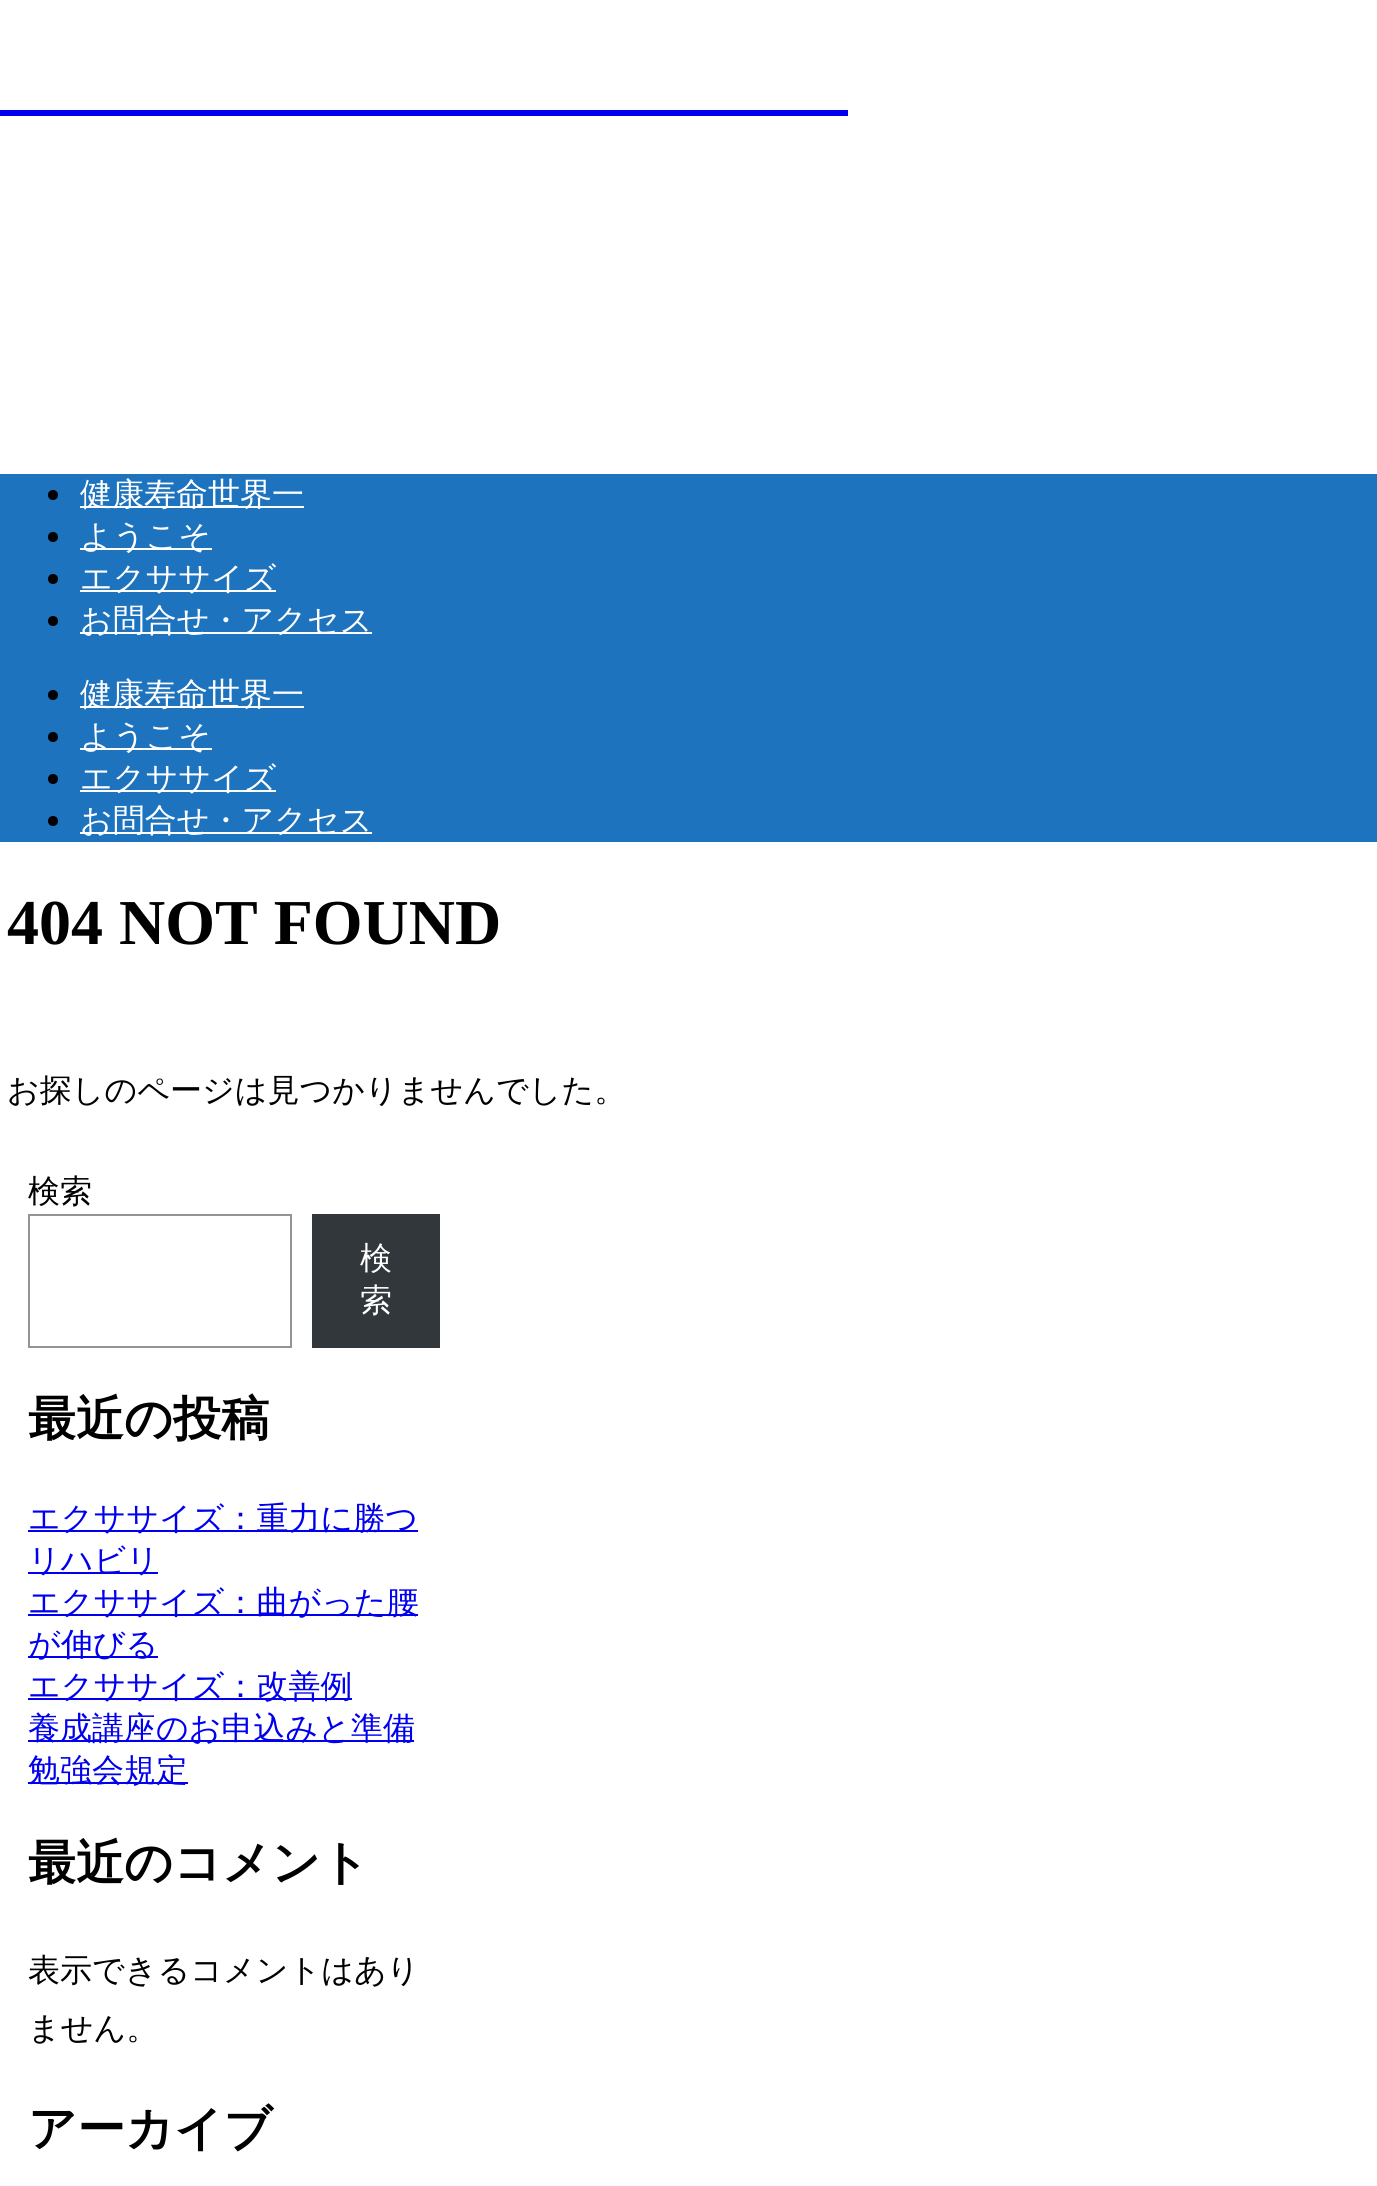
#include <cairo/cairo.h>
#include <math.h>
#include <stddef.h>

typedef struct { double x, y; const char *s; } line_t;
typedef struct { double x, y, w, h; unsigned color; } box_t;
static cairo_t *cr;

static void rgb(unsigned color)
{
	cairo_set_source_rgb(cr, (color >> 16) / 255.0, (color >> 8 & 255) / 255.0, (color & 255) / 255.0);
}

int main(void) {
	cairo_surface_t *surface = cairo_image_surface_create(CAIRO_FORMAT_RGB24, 1377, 2186);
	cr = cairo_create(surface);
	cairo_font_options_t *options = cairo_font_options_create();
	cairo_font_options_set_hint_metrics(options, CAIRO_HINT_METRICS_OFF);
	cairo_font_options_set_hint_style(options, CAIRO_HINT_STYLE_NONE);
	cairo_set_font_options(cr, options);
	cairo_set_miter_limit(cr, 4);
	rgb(0xffffff);
	cairo_paint(cr);
	rgb(0x0000ee);
	cairo_rectangle(cr, 0, 110, 848, 6);
	cairo_fill(cr);
	rgb(0x1e73be);
	cairo_rectangle(cr, 0, 474, 1377, 368);
	cairo_fill(cr);
	rgb(0x000000);
	cairo_arc(cr, 53, 495, 5, 0, 2 * M_PI);
	cairo_fill(cr);
	rgb(0xffffff);
	cairo_rectangle(cr, 80, 506, 224, 2);
	cairo_fill(cr);
	rgb(0x000000);
	cairo_arc(cr, 53, 537, 5, 0, 2 * M_PI);
	cairo_fill(cr);
	rgb(0xffffff);
	cairo_rectangle(cr, 80, 548, 132, 2);
	cairo_fill(cr);
	rgb(0x000000);
	cairo_arc(cr, 53, 579, 5, 0, 2 * M_PI);
	cairo_fill(cr);
	rgb(0xffffff);
	cairo_rectangle(cr, 80, 590, 196, 2);
	cairo_fill(cr);
	rgb(0x000000);
	cairo_arc(cr, 53, 621, 5, 0, 2 * M_PI);
	cairo_fill(cr);
	rgb(0xffffff);
	cairo_rectangle(cr, 80, 632, 292, 2);
	cairo_fill(cr);
	rgb(0x000000);
	cairo_arc(cr, 53, 695, 5, 0, 2 * M_PI);
	cairo_fill(cr);
	rgb(0xffffff);
	cairo_rectangle(cr, 80, 706, 224, 2);
	cairo_fill(cr);
	rgb(0x000000);
	cairo_arc(cr, 53, 737, 5, 0, 2 * M_PI);
	cairo_fill(cr);
	rgb(0xffffff);
	cairo_rectangle(cr, 80, 748, 132, 2);
	cairo_fill(cr);
	rgb(0x000000);
	cairo_arc(cr, 53, 779, 5, 0, 2 * M_PI);
	cairo_fill(cr);
	rgb(0xffffff);
	cairo_rectangle(cr, 80, 790, 196, 2);
	cairo_fill(cr);
	rgb(0x000000);
	cairo_arc(cr, 53, 821, 5, 0, 2 * M_PI);
	cairo_fill(cr);
	rgb(0xffffff);
	cairo_rectangle(cr, 80, 832, 292, 2);
	cairo_fill(cr);
	cairo_rectangle(cr, 29, 1215, 262, 132);
	rgb(0x949494);
	cairo_stroke(cr);
	{
		static const box_t items[] = {
			{312, 1214, 128, 134, 0x32373c},
			{28, 1530, 390, 2, 0x0000ee},
			{28, 1572, 130, 2, 0x0000ee},
			{28, 1614, 390, 2, 0x0000ee},
			{28, 1656, 130, 2, 0x0000ee},
			{28, 1698, 324, 2, 0x0000ee},
			{28, 1740, 386, 2, 0x0000ee},
			{28, 1782, 160, 2, 0x0000ee},
		};
		for (size_t i = 0; i < sizeof items / sizeof *items; i++) {
			rgb(items[i].color);
			cairo_rectangle(cr, items[i].x, items[i].y, items[i].w, items[i].h);
			cairo_fill(cr);
		}
	}
	cairo_select_font_face(cr, "WenQuanYi Zen Hei Medium", CAIRO_FONT_SLANT_NORMAL, CAIRO_FONT_WEIGHT_NORMAL);
	cairo_set_font_size(cr, 32);
	rgb(0xffffff);
	{
		static const line_t items[] = {
			{80, 505, "健康寿命世界一"},
			{80, 547, "ようこそ"},
			{80, 589, "エクササイズ"},
			{80, 631, "お問合せ・アクセス"},
			{80, 705, "健康寿命世界一"},
			{80, 747, "ようこそ"},
			{80, 789, "エクササイズ"},
			{80, 831, "お問合せ・アクセス"},
		};
		for (size_t i = 0; i < sizeof items / sizeof *items; i++) {
			cairo_move_to(cr, items[i].x, items[i].y);
			cairo_show_text(cr, items[i].s);
		}
	}
	cairo_select_font_face(cr, "Liberation Serif", CAIRO_FONT_SLANT_NORMAL, CAIRO_FONT_WEIGHT_BOLD);
	cairo_set_font_size(cr, 64);
	rgb(0x000000);
	cairo_move_to(cr, 7, 944);
	cairo_show_text(cr, "404 NOT FOUND");
	cairo_select_font_face(cr, "WenQuanYi Zen Hei Medium", CAIRO_FONT_SLANT_NORMAL, CAIRO_FONT_WEIGHT_NORMAL);
	cairo_set_font_size(cr, 32);
	cairo_move_to(cr, 7, 1101);
	cairo_show_text(cr, "お探しのページは見つかりませんでした。");
	cairo_move_to(cr, 28, 1202);
	cairo_show_text(cr, "検索");
	rgb(0xffffff);
	cairo_move_to(cr, 360, 1269);
	cairo_show_text(cr, "検");
	cairo_move_to(cr, 360, 1311);
	cairo_show_text(cr, "索");
	cairo_select_font_face(cr, "WenQuanYi Zen Hei", CAIRO_FONT_SLANT_NORMAL, CAIRO_FONT_WEIGHT_BOLD);
	cairo_set_font_size(cr, 48);
	rgb(0x000000);
	cairo_move_to(cr, 28, 1435);
	cairo_show_text(cr, "最近の投稿");
	cairo_select_font_face(cr, "WenQuanYi Zen Hei Medium", CAIRO_FONT_SLANT_NORMAL, CAIRO_FONT_WEIGHT_NORMAL);
	cairo_set_font_size(cr, 32);
	rgb(0x0000ee);
	{
		static const line_t items[] = {
			{28, 1529, "エクササイズ：重力に勝つ"},
			{28, 1571, "リハビリ"},
			{28, 1613, "エクササイズ：曲がった腰"},
			{28, 1655, "が伸びる"},
			{28, 1697, "エクササイズ：改善例"},
			{28, 1739, "養成講座のお申込みと準備"},
			{28, 1781, "勉強会規定"},
		};
		for (size_t i = 0; i < sizeof items / sizeof *items; i++) {
			cairo_move_to(cr, items[i].x, items[i].y);
			cairo_show_text(cr, items[i].s);
		}
	}
	cairo_select_font_face(cr, "WenQuanYi Zen Hei", CAIRO_FONT_SLANT_NORMAL, CAIRO_FONT_WEIGHT_BOLD);
	cairo_set_font_size(cr, 48);
	rgb(0x000000);
	cairo_move_to(cr, 28, 1879);
	cairo_show_text(cr, "最近のコメント");
	cairo_select_font_face(cr, "WenQuanYi Zen Hei Medium", CAIRO_FONT_SLANT_NORMAL, CAIRO_FONT_WEIGHT_NORMAL);
	cairo_set_font_size(cr, 32);
	cairo_move_to(cr, 28, 1981);
	cairo_show_text(cr, "表示できるコメントはあり");
	cairo_move_to(cr, 28, 2039);
	cairo_show_text(cr, "ません。");
	cairo_select_font_face(cr, "WenQuanYi Zen Hei", CAIRO_FONT_SLANT_NORMAL, CAIRO_FONT_WEIGHT_BOLD);
	cairo_set_font_size(cr, 48);
	cairo_move_to(cr, 28, 2145);
	cairo_show_text(cr, "アーカイブ");
	cairo_surface_write_to_png(surface, "page.png");
	cairo_font_options_destroy(options);
	cairo_destroy(cr);
	cairo_surface_destroy(surface);
	return 0;
}
